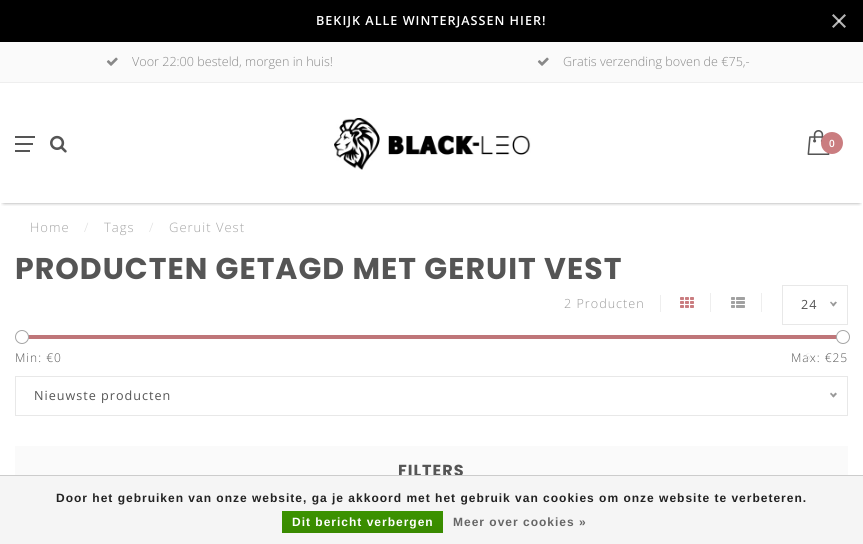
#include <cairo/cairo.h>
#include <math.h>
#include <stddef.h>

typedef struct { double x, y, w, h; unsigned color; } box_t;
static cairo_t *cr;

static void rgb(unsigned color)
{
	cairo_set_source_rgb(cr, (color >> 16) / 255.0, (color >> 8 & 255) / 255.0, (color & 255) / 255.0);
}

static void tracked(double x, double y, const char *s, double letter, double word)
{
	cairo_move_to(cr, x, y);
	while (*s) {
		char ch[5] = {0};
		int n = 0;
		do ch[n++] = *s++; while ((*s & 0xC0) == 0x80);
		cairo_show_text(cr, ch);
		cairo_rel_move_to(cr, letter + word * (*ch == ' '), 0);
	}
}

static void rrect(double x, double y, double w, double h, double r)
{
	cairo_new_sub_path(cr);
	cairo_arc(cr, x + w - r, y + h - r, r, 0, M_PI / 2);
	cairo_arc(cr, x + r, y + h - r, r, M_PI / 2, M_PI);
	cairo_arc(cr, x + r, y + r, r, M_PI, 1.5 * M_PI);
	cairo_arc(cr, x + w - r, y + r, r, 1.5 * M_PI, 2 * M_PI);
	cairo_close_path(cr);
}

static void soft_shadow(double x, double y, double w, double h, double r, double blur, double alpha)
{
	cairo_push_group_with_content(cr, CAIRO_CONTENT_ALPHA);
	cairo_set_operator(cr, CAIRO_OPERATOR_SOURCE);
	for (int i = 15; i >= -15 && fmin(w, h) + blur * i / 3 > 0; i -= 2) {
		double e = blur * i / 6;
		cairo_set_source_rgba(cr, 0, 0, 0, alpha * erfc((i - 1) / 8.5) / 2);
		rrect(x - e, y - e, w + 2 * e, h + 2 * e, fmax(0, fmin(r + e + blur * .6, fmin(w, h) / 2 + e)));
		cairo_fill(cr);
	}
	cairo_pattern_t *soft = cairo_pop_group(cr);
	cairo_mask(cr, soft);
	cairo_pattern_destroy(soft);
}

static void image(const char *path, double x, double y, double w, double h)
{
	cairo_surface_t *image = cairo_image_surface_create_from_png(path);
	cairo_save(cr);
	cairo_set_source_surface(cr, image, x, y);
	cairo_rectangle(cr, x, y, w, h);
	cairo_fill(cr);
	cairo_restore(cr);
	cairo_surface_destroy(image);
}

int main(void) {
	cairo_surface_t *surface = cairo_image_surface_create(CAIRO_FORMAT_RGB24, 863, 544);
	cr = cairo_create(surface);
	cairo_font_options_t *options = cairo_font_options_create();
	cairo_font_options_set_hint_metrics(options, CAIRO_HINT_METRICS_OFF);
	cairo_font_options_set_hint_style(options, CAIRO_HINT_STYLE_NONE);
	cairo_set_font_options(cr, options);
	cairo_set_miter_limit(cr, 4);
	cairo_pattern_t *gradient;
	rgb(0xffffff);
	cairo_paint(cr);
	rgb(0x000000);
	cairo_rectangle(cr, 0, 0, 863, 42);
	cairo_fill(cr);
	rgb(0xb3b3b3);
	cairo_new_path(cr);
	cairo_move_to(cr, 833.5, 14);
	cairo_line_to(cr, 846, 26.5);
	cairo_line_to(cr, 844.5, 28);
	cairo_line_to(cr, 832, 15.5);
	cairo_close_path(cr);
	cairo_fill(cr);
	cairo_set_source_rgba(cr, 1, 1, 1, 0.7);
	cairo_new_path(cr);
	cairo_move_to(cr, 832, 26.5);
	cairo_line_to(cr, 844.5, 14);
	cairo_line_to(cr, 846, 15.5);
	cairo_line_to(cr, 833.5, 28);
	cairo_close_path(cr);
	cairo_fill(cr);
	rgb(0xfafafa);
	cairo_rectangle(cr, 0, 42, 863, 40);
	cairo_fill(cr);
	rgb(0xeeeeee);
	cairo_rectangle(cr, 0, 82, 863, 1);
	cairo_fill(cr);
	image("img/1.png", 106, 57, 12, 9);
	image("img/1.png", 537, 57, 12, 9);
	cairo_save(cr);
	cairo_rectangle(cr, 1, 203, 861, 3);
	cairo_clip(cr);
	rgb(0x000000);
	soft_shadow(4, 89, 855, 112, 0, 2.5, 1);
	cairo_restore(cr);
	{
		static const box_t items[] = {
			{15, 136, 20, 2, 0x555555},
			{15, 143, 18, 2, 0x555555},
			{15, 150, 15, 2, 0x555555},
		};
		for (size_t i = 0; i < sizeof items / sizeof *items; i++) {
			rgb(items[i].color);
			cairo_rectangle(cr, items[i].x, items[i].y, items[i].w, items[i].h);
			cairo_fill(cr);
		}
	}
	image("img/2.png", 50, 135, 17, 18);
	image("img/3.png", 334, 118, 197, 52);
	image("img/4.png", 807, 130, 23, 25);
	rgb(0xca7d80);
	cairo_arc(cr, 832, 143, 11, 0, 2 * M_PI);
	cairo_fill(cr);
	rgb(0xeeeeee);
	cairo_rectangle(cr, 660, 295, 1, 17);
	cairo_fill(cr);
	cairo_rectangle(cr, 710, 293, 1, 19);
	cairo_fill(cr);
	image("img/5.png", 680, 297, 14, 11);
	cairo_rectangle(cr, 761, 293, 1, 19);
	cairo_fill(cr);
	image("img/6.png", 731, 297, 14, 11);
	cairo_rectangle(cr, 782.5, 285.5, 65, 39);
	rgb(0xe8e8e8);
	cairo_set_line_width(cr, 1);
	cairo_stroke(cr);
	rgb(0x999999);
	cairo_new_path(cr);
	cairo_move_to(cr, 835.5, 301.5);
	cairo_line_to(cr, 837, 302.5);
	cairo_line_to(cr, 833.5, 306.5);
	cairo_line_to(cr, 832, 305);
	cairo_close_path(cr);
	cairo_fill(cr);
	cairo_new_path(cr);
	cairo_move_to(cr, 831, 301.5);
	cairo_line_to(cr, 834.5, 305);
	cairo_line_to(cr, 833.5, 306.5);
	cairo_line_to(cr, 830, 302.5);
	cairo_close_path(cr);
	cairo_fill(cr);
	rgb(0xbf7679);
	cairo_rectangle(cr, 25, 335, 812, 4);
	cairo_fill(cr);
	rgb(0xffffff);
	cairo_arc(cr, 22, 337, 6.5, 0, 2 * M_PI);
	cairo_fill_preserve(cr);
	rgb(0xa5a5a5);
	cairo_stroke(cr);
	rgb(0xffffff);
	cairo_arc(cr, 843, 337, 6.5, 0, 2 * M_PI);
	cairo_fill_preserve(cr);
	rgb(0xa5a5a5);
	cairo_stroke(cr);
	cairo_rectangle(cr, 15.5, 376.5, 832, 39);
	rgb(0xe8e8e8);
	cairo_stroke(cr);
	rgb(0x999999);
	cairo_new_path(cr);
	cairo_move_to(cr, 835.5, 392.5);
	cairo_line_to(cr, 837, 394);
	cairo_line_to(cr, 833.5, 397.5);
	cairo_line_to(cr, 832, 396);
	cairo_close_path(cr);
	cairo_fill(cr);
	cairo_new_path(cr);
	cairo_move_to(cr, 831, 392.5);
	cairo_line_to(cr, 834.5, 396);
	cairo_line_to(cr, 833.5, 397.5);
	cairo_line_to(cr, 830, 394);
	cairo_close_path(cr);
	cairo_fill(cr);
	rgb(0xfafafa);
	cairo_rectangle(cr, 15, 446, 833, 29);
	cairo_fill(cr);
	cairo_select_font_face(cr, "Open Sans SemiBold", CAIRO_FONT_SLANT_NORMAL, CAIRO_FONT_WEIGHT_NORMAL);
	cairo_set_font_size(cr, 12.6);
	rgb(0xffffff);
	tracked(316, 25, "BEKIJK ALLE WINTERJASSEN HIER!", 1, 0);
	cairo_select_font_face(cr, "Open Sans Light", CAIRO_FONT_SLANT_NORMAL, CAIRO_FONT_WEIGHT_NORMAL);
	rgb(0x888888);
	cairo_move_to(cr, 132, 66);
	cairo_show_text(cr, "Voor 22:00 besteld, morgen in huis!");
	cairo_move_to(cr, 563, 66);
	cairo_show_text(cr, "Gratis verzending boven de €75,-");
	cairo_select_font_face(cr, "Open Sans SemiBold", CAIRO_FONT_SLANT_NORMAL, CAIRO_FONT_WEIGHT_NORMAL);
	cairo_set_font_size(cr, 10);
	rgb(0xffffff);
	tracked(829, 147, "0", 1, 0);
	cairo_select_font_face(cr, "Open Sans Light", CAIRO_FONT_SLANT_NORMAL, CAIRO_FONT_WEIGHT_NORMAL);
	cairo_set_font_size(cr, 13);
	rgb(0xa5a5a5);
	tracked(30, 232, "Home", 1, 0);
	rgb(0xdddddd);
	tracked(84, 232, "/", 1, 0);
	rgb(0xa5a5a5);
	tracked(104, 232, "Tags", 1, 0);
	rgb(0xdddddd);
	tracked(149, 232, "/", 1, 0);
	rgb(0xa5a5a5);
	tracked(169, 232, "Geruit Vest", 1, 0);
	cairo_select_font_face(cr, "Poppins", CAIRO_FONT_SLANT_NORMAL, CAIRO_FONT_WEIGHT_BOLD);
	cairo_set_font_size(cr, 30);
	rgb(0x555555);
	tracked(15, 279, "PRODUCTEN GETAGD MET GERUIT VEST", 1, 0);
	cairo_select_font_face(cr, "Open Sans Light", CAIRO_FONT_SLANT_NORMAL, CAIRO_FONT_WEIGHT_NORMAL);
	cairo_set_font_size(cr, 12.6);
	rgb(0x999999);
	tracked(564, 308, "2 Producten", 1, 0);
	cairo_select_font_face(cr, "Open Sans", CAIRO_FONT_SLANT_NORMAL, CAIRO_FONT_WEIGHT_NORMAL);
	rgb(0x555555);
	tracked(801, 309, "24", 1, 0);
	cairo_select_font_face(cr, "Open Sans Light", CAIRO_FONT_SLANT_NORMAL, CAIRO_FONT_WEIGHT_NORMAL);
	cairo_set_font_size(cr, 12);
	tracked(15, 362, "Min: €0", 1, 0);
	tracked(791, 362, "Max: €25", 1, 0);
	cairo_select_font_face(cr, "Open Sans", CAIRO_FONT_SLANT_NORMAL, CAIRO_FONT_WEIGHT_NORMAL);
	cairo_set_font_size(cr, 9);
	rgb(0xe8e8e8);
	tracked(805, 360, "6", 1, 0);
	cairo_set_font_size(cr, 12.6);
	rgb(0x555555);
	tracked(34, 400, "Nieuwste producten", 1, 0);
	cairo_select_font_face(cr, "Poppins", CAIRO_FONT_SLANT_NORMAL, CAIRO_FONT_WEIGHT_BOLD);
	cairo_set_font_size(cr, 16);
	tracked(398, 476, "FILTERS", 1, 0);
	rgb(0xf5f5f5);
	cairo_rectangle(cr, 0, 476, 863, 68);
	cairo_fill(cr);
	rgb(0xcccccc);
	cairo_rectangle(cr, 0, 475, 863, 1);
	cairo_fill(cr);
	cairo_select_font_face(cr, "Liberation Sans", CAIRO_FONT_SLANT_NORMAL, CAIRO_FONT_WEIGHT_BOLD);
	cairo_set_font_size(cr, 12);
	rgb(0x222222);
	tracked(56, 502, "Door het gebruiken van onze website, ga je akkoord met het gebruik van cookies om onze website te verbeteren.", 1, 0);
	gradient = cairo_pattern_create_linear(363, 511, 363, 533);
	cairo_pattern_add_color_stop_rgba(gradient, 0, 0.235, 0.576, 0, 1);
	cairo_pattern_add_color_stop_rgba(gradient, 1, 0.224, 0.541, 0, 1);
	cairo_set_source(cr, gradient);
	cairo_pattern_destroy(gradient);
	cairo_rectangle(cr, 282, 511, 161, 22);
	cairo_fill(cr);
	rgb(0xffffff);
	tracked(292, 526, "Dit bericht verbergen", 1, 0);
	rgb(0x666666);
	tracked(453, 526, "Meer over cookies »", 1, 0);
	cairo_surface_write_to_png(surface, "page.png");
	cairo_font_options_destroy(options);
	cairo_destroy(cr);
	cairo_surface_destroy(surface);
	return 0;
}
